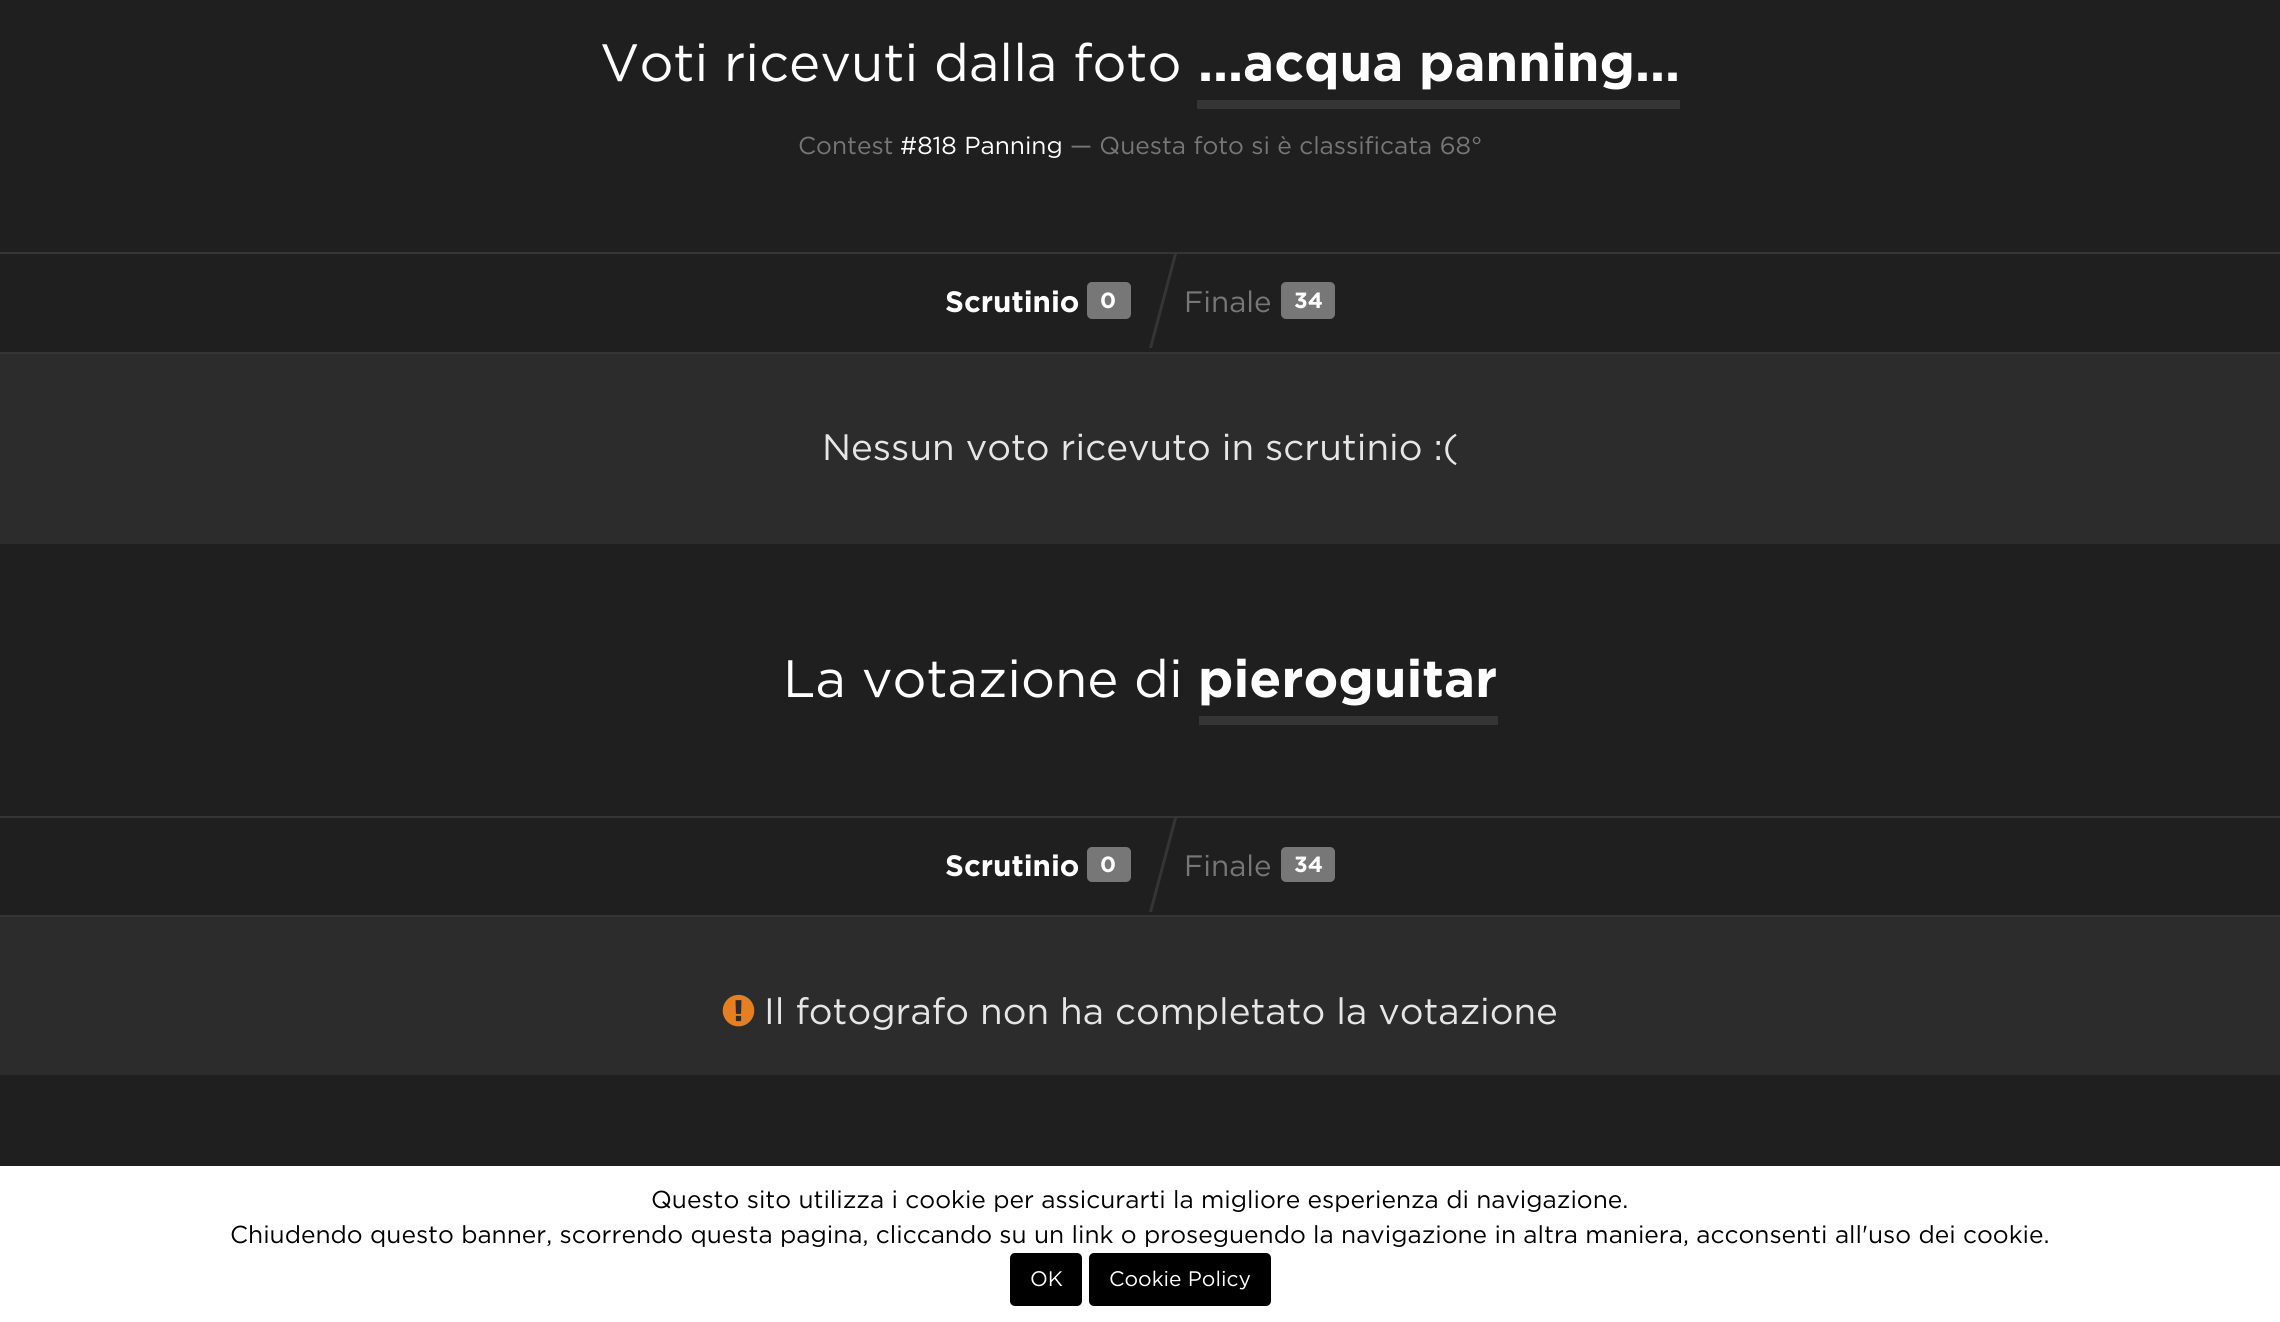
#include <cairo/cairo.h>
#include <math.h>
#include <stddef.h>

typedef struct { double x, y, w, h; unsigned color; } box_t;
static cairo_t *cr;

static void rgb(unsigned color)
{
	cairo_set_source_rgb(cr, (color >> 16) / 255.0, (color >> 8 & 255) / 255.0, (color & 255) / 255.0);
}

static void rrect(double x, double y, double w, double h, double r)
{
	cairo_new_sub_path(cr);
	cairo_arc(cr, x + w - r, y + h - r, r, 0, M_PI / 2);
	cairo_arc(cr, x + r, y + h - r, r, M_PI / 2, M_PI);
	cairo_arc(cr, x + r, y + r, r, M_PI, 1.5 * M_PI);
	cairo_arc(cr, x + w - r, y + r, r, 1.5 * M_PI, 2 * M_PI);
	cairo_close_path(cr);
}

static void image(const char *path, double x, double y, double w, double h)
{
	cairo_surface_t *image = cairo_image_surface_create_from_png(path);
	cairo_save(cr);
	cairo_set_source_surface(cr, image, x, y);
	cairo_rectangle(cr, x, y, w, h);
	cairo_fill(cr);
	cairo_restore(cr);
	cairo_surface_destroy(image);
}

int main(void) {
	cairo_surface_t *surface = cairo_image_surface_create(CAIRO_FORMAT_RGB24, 2280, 1322);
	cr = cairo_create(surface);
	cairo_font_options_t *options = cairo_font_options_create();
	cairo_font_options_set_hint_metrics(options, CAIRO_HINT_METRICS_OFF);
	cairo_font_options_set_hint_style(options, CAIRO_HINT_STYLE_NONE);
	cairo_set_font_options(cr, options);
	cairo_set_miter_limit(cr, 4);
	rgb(0x2c2c2c);
	cairo_paint(cr);
	{
		static const box_t items[] = {
			{0, 0, 2280, 352, 0x1f1f1f},
			{1197, 100, 483, 9, 0x353535},
			{0, 252, 2280, 2, 0x353535},
			{0, 352, 2280, 2, 0x353535},
		};
		for (size_t i = 0; i < sizeof items / sizeof *items; i++) {
			rgb(items[i].color);
			cairo_rectangle(cr, items[i].x, items[i].y, items[i].w, items[i].h);
			cairo_fill(cr);
		}
	}
	rgb(0x777777);
	rrect(1087, 282, 44, 37, 5);
	cairo_fill(cr);
	rgb(0x353535);
	cairo_new_path(cr);
	cairo_move_to(cr, 1174, 254);
	cairo_line_to(cr, 1177, 254);
	cairo_line_to(cr, 1152, 348);
	cairo_line_to(cr, 1149, 348);
	cairo_close_path(cr);
	cairo_fill(cr);
	rgb(0x777777);
	rrect(1281, 282, 54, 37, 5);
	cairo_fill(cr);
	{
		static const box_t items[] = {
			{0, 544, 2280, 371, 0x1f1f1f},
			{1199, 716, 299, 9, 0x353535},
			{0, 816, 2280, 2, 0x353535},
			{0, 915, 2280, 2, 0x353535},
		};
		for (size_t i = 0; i < sizeof items / sizeof *items; i++) {
			rgb(items[i].color);
			cairo_rectangle(cr, items[i].x, items[i].y, items[i].w, items[i].h);
			cairo_fill(cr);
		}
	}
	rgb(0x777777);
	rrect(1087, 847, 44, 35, 5);
	cairo_fill(cr);
	rgb(0x353535);
	cairo_new_path(cr);
	cairo_move_to(cr, 1174, 818);
	cairo_line_to(cr, 1177, 818);
	cairo_line_to(cr, 1152, 912);
	cairo_line_to(cr, 1149, 912);
	cairo_close_path(cr);
	cairo_fill(cr);
	rgb(0x777777);
	rrect(1281, 847, 54, 35, 5);
	cairo_fill(cr);
	image("img/1.png", 722, 994, 33, 33);
	rgb(0x1f1f1f);
	cairo_rectangle(cr, 0, 1075, 2280, 91);
	cairo_fill(cr);
	rgb(0xffffff);
	cairo_rectangle(cr, 0, 1166, 2280, 156);
	cairo_fill(cr);
	rgb(0x000000);
	rrect(1010, 1253, 72, 53, 5);
	cairo_fill(cr);
	rrect(1089, 1253, 182, 53, 5);
	cairo_fill(cr);
	cairo_select_font_face(cr, "Gotham", CAIRO_FONT_SLANT_NORMAL, CAIRO_FONT_WEIGHT_NORMAL);
	cairo_set_font_size(cr, 52.5);
	rgb(0xffffff);
	cairo_move_to(cr, 600, 81);
	cairo_show_text(cr, "Voti ricevuti dalla foto");
	cairo_select_font_face(cr, "Gotham", CAIRO_FONT_SLANT_NORMAL, CAIRO_FONT_WEIGHT_BOLD);
	cairo_move_to(cr, 1198, 81);
	cairo_show_text(cr, "...acqua panning...");
	cairo_select_font_face(cr, "Gotham", CAIRO_FONT_SLANT_NORMAL, CAIRO_FONT_WEIGHT_NORMAL);
	cairo_set_font_size(cr, 24.5);
	rgb(0x777777);
	cairo_move_to(cr, 798, 154);
	cairo_show_text(cr, "Contest");
	rgb(0xffffff);
	cairo_move_to(cr, 900, 154);
	cairo_show_text(cr, "#818 Panning");
	rgb(0x777777);
	cairo_move_to(cr, 1070, 154);
	cairo_show_text(cr, "— Questa foto si è classificata 68°");
	cairo_select_font_face(cr, "Gotham", CAIRO_FONT_SLANT_NORMAL, CAIRO_FONT_WEIGHT_BOLD);
	cairo_set_font_size(cr, 29.5);
	rgb(0xffffff);
	cairo_move_to(cr, 945, 312);
	cairo_show_text(cr, "Scrutinio");
	cairo_set_font_size(cr, 22);
	cairo_move_to(cr, 1100, 308);
	cairo_show_text(cr, "0");
	cairo_select_font_face(cr, "Gotham", CAIRO_FONT_SLANT_NORMAL, CAIRO_FONT_WEIGHT_NORMAL);
	cairo_set_font_size(cr, 29.5);
	rgb(0x777777);
	cairo_move_to(cr, 1184, 312);
	cairo_show_text(cr, "Finale");
	cairo_select_font_face(cr, "Gotham", CAIRO_FONT_SLANT_NORMAL, CAIRO_FONT_WEIGHT_BOLD);
	cairo_set_font_size(cr, 22);
	rgb(0xffffff);
	cairo_move_to(cr, 1294, 308);
	cairo_show_text(cr, "34");
	cairo_select_font_face(cr, "Gotham", CAIRO_FONT_SLANT_NORMAL, CAIRO_FONT_WEIGHT_NORMAL);
	cairo_set_font_size(cr, 36.75);
	rgb(0xe6e6e6);
	cairo_move_to(cr, 822, 460);
	cairo_show_text(cr, "Nessun voto ricevuto in scrutinio :(");
	cairo_set_font_size(cr, 52.5);
	rgb(0xffffff);
	cairo_move_to(cr, 783, 697);
	cairo_show_text(cr, "La votazione di");
	cairo_select_font_face(cr, "Gotham", CAIRO_FONT_SLANT_NORMAL, CAIRO_FONT_WEIGHT_BOLD);
	cairo_move_to(cr, 1198, 697);
	cairo_show_text(cr, "pieroguitar");
	cairo_set_font_size(cr, 29.5);
	cairo_move_to(cr, 945, 876);
	cairo_show_text(cr, "Scrutinio");
	cairo_set_font_size(cr, 22);
	cairo_move_to(cr, 1100, 872);
	cairo_show_text(cr, "0");
	cairo_select_font_face(cr, "Gotham", CAIRO_FONT_SLANT_NORMAL, CAIRO_FONT_WEIGHT_NORMAL);
	cairo_set_font_size(cr, 29.5);
	rgb(0x777777);
	cairo_move_to(cr, 1184, 876);
	cairo_show_text(cr, "Finale");
	cairo_select_font_face(cr, "Gotham", CAIRO_FONT_SLANT_NORMAL, CAIRO_FONT_WEIGHT_BOLD);
	cairo_set_font_size(cr, 22);
	rgb(0xffffff);
	cairo_move_to(cr, 1294, 872);
	cairo_show_text(cr, "34");
	cairo_select_font_face(cr, "Gotham", CAIRO_FONT_SLANT_NORMAL, CAIRO_FONT_WEIGHT_NORMAL);
	cairo_set_font_size(cr, 36.75);
	rgb(0xe6e6e6);
	cairo_move_to(cr, 764, 1024);
	cairo_show_text(cr, "Il fotografo non ha completato la votazione");
	cairo_set_font_size(cr, 24.5);
	rgb(0x000000);
	cairo_move_to(cr, 651, 1208);
	cairo_show_text(cr, "Questo sito utilizza i cookie per assicurarti la migliore esperienza di navigazione.");
	cairo_move_to(cr, 230, 1243);
	cairo_show_text(cr, "Chiudendo questo banner, scorrendo questa pagina, cliccando su un link o proseguendo la navigazione in altra maniera, acconsenti all'uso dei cookie.");
	cairo_set_font_size(cr, 21);
	rgb(0xffffff);
	cairo_move_to(cr, 1030, 1286);
	cairo_show_text(cr, "OK");
	cairo_move_to(cr, 1109, 1286);
	cairo_show_text(cr, "Cookie Policy");
	cairo_surface_write_to_png(surface, "page.png");
	cairo_font_options_destroy(options);
	cairo_destroy(cr);
	cairo_surface_destroy(surface);
	return 0;
}
